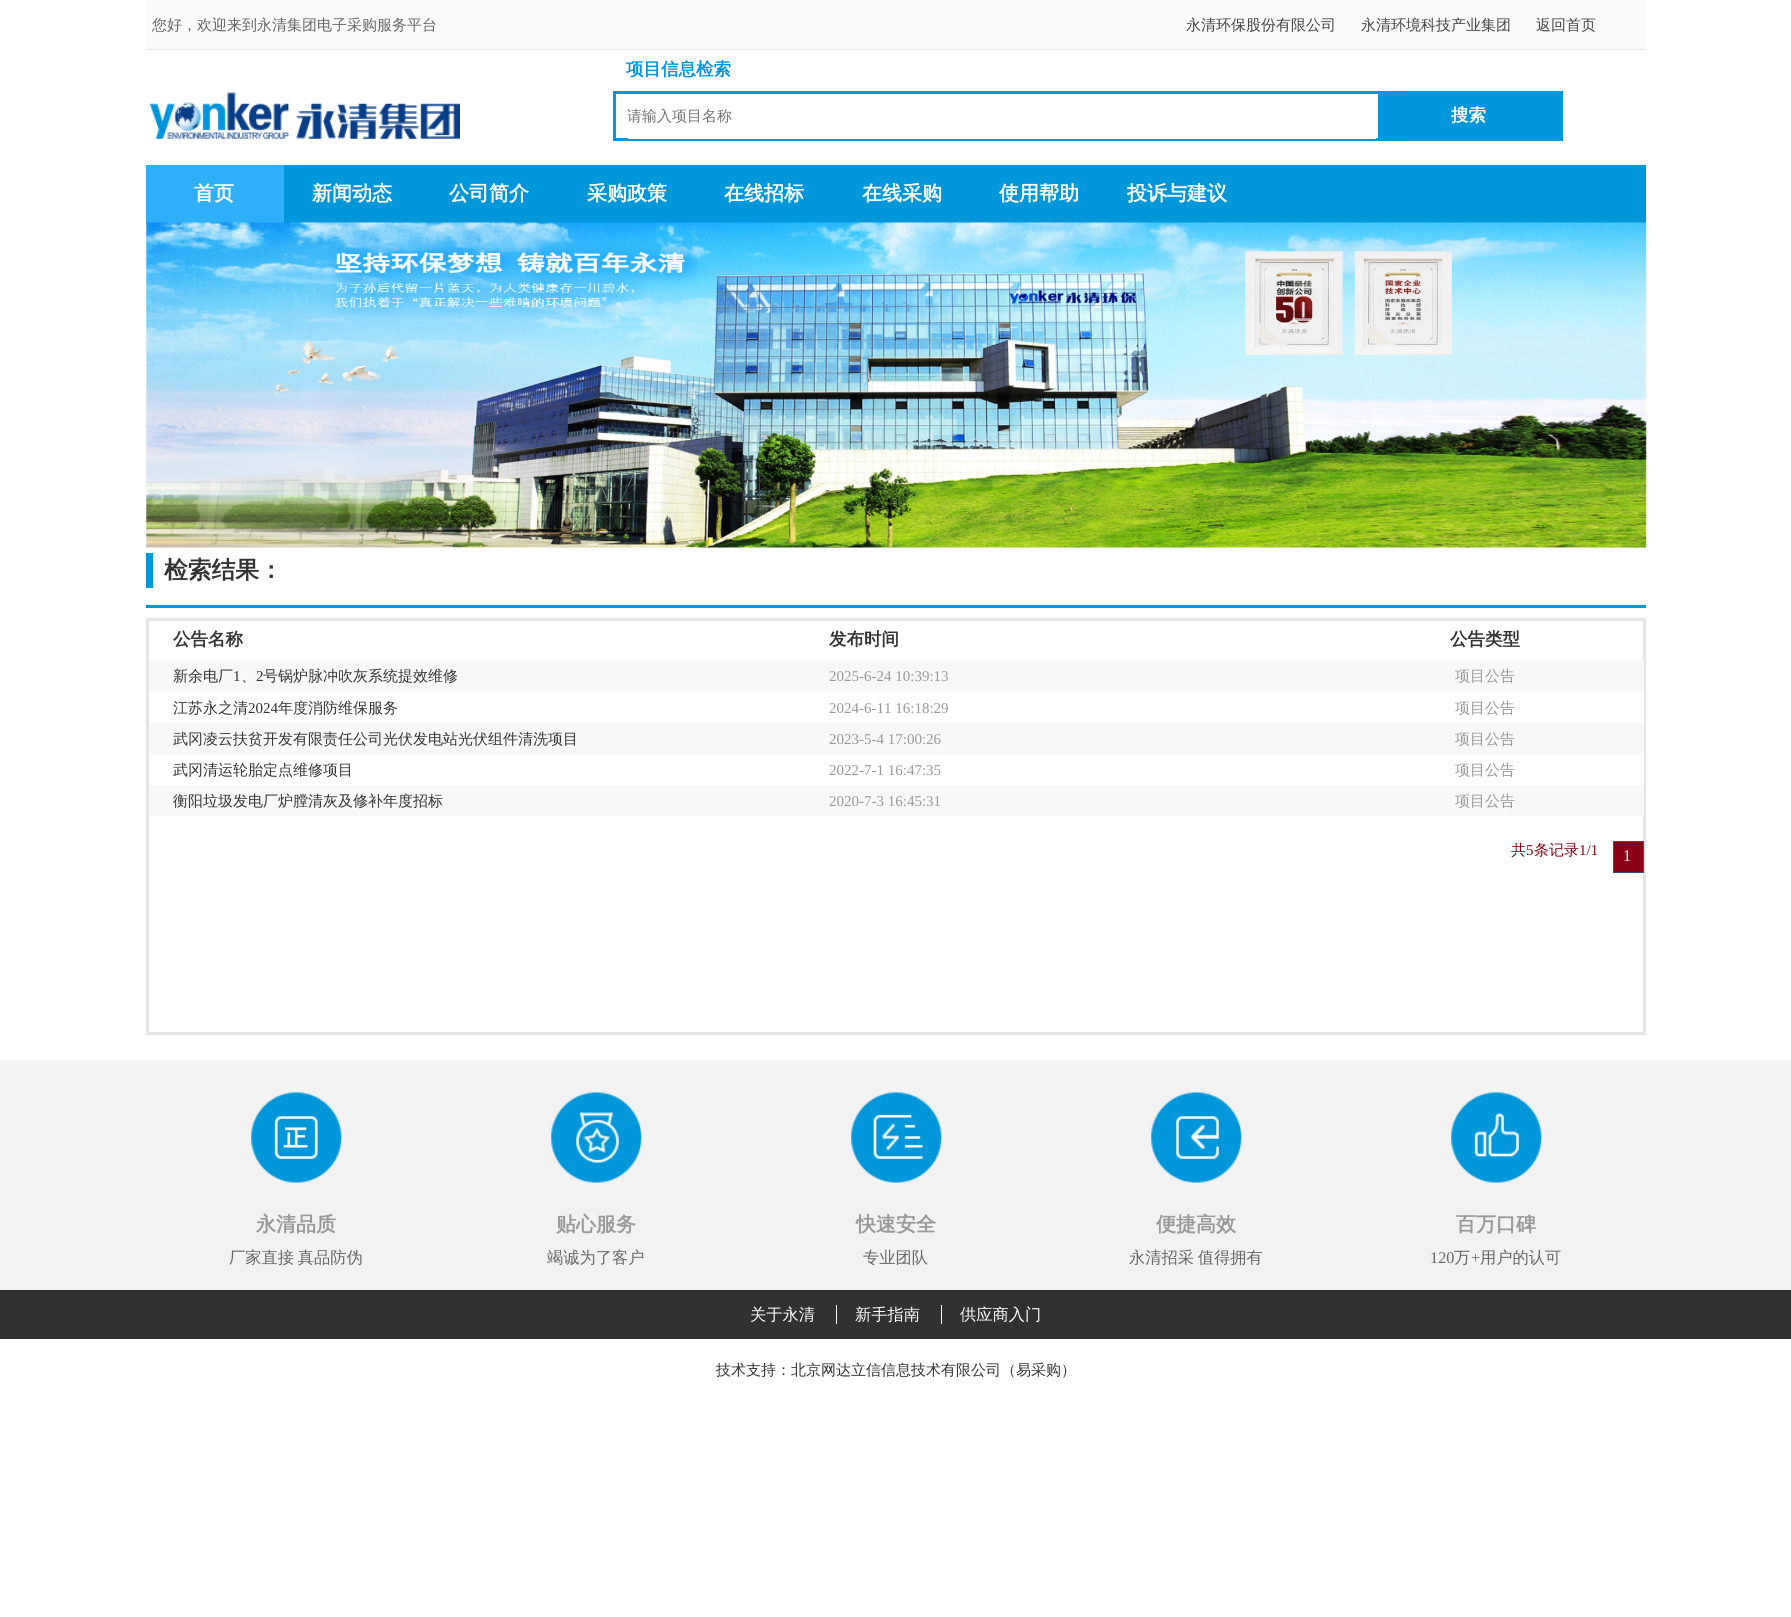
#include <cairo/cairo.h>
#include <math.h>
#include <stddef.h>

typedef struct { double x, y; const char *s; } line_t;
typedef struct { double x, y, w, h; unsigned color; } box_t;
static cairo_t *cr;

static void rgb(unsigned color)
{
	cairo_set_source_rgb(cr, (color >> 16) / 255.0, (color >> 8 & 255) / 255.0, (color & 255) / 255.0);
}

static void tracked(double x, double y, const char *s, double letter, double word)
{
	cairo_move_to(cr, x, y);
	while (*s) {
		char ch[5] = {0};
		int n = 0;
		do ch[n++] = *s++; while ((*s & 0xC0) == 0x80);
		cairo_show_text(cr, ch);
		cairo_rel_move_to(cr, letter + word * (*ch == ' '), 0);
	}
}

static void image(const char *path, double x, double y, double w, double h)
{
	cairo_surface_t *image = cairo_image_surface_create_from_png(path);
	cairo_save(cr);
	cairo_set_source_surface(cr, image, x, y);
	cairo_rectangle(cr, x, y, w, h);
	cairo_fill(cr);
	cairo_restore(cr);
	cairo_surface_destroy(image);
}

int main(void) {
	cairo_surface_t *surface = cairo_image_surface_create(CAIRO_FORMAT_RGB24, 1791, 1617);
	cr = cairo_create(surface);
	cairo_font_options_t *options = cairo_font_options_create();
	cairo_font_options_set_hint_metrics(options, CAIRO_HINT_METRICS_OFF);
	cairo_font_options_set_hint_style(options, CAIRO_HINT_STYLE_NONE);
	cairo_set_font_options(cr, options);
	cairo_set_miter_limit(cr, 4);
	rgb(0xffffff);
	cairo_paint(cr);
	rgb(0xfafafa);
	cairo_rectangle(cr, 146, 0, 1500, 49);
	cairo_fill(cr);
	rgb(0xececec);
	cairo_rectangle(cr, 146, 49, 1500, 1);
	cairo_fill(cr);
	image("img/1.png", 150, 92, 310, 48);
	cairo_rectangle(cr, 614.5, 92.5, 947, 47);
	rgb(0x0296db);
	cairo_set_line_width(cr, 3);
	cairo_stroke(cr);
	{
		static const box_t items[] = {
			{628, 138, 748, 1, 0xffffff},
			{1378, 94, 182, 44, 0x0296db},
			{284, 165, 1362, 58, 0x0296db},
			{146, 165, 138, 58, 0x2faff8},
		};
		for (size_t i = 0; i < sizeof items / sizeof *items; i++) {
			rgb(items[i].color);
			cairo_rectangle(cr, items[i].x, items[i].y, items[i].w, items[i].h);
			cairo_fill(cr);
		}
	}
	image("img/2.png", 146, 222, 1501, 326);
	rgb(0x0296db);
	cairo_rectangle(cr, 146, 605, 1500, 3);
	cairo_fill(cr);
	cairo_rectangle(cr, 146, 553, 7, 35);
	cairo_fill(cr);
	cairo_rectangle(cr, 147.5, 619.5, 1497, 414);
	rgb(0xe5e5e5);
	cairo_stroke(cr);
	{
		static const box_t items[] = {
			{149, 660, 1495, 31, 0xf8f8f8},
			{1643, 691, 1, 32, 0xffffff},
			{149, 723, 1495, 31, 0xf8f8f8},
			{1643, 754, 1, 31, 0xffffff},
			{149, 785, 1495, 31, 0xf8f8f8},
		};
		for (size_t i = 0; i < sizeof items / sizeof *items; i++) {
			rgb(items[i].color);
			cairo_rectangle(cr, items[i].x, items[i].y, items[i].w, items[i].h);
			cairo_fill(cr);
		}
	}
	rgb(0x8b0317);
	cairo_rectangle(cr, 1613.5, 841.5, 30, 31);
	cairo_fill_preserve(cr);
	rgb(0x2d4f90);
	cairo_set_line_width(cr, 1);
	cairo_stroke(cr);
	rgb(0xf2f2f2);
	cairo_rectangle(cr, 0, 1060, 1791, 230);
	cairo_fill(cr);
	image("img/3.png", 251, 1092, 91, 91);
	image("img/4.png", 551, 1092, 91, 91);
	image("img/5.png", 851, 1092, 91, 91);
	image("img/6.png", 1151, 1092, 91, 91);
	image("img/7.png", 1451, 1092, 91, 91);
	{
		static const box_t items[] = {
			{0, 1290, 1791, 49, 0x313131},
			{836, 1305, 1, 19, 0xffffff},
			{941, 1305, 1, 19, 0xffffff},
		};
		for (size_t i = 0; i < sizeof items / sizeof *items; i++) {
			rgb(items[i].color);
			cairo_rectangle(cr, items[i].x, items[i].y, items[i].w, items[i].h);
			cairo_fill(cr);
		}
	}
	cairo_select_font_face(cr, "WenQuanYi Zen Hei Medium", CAIRO_FONT_SLANT_NORMAL, CAIRO_FONT_WEIGHT_NORMAL);
	cairo_set_font_size(cr, 15);
	rgb(0x666666);
	cairo_move_to(cr, 152, 30);
	cairo_show_text(cr, "您好，欢迎来到永清集团电子采购服务平台");
	rgb(0x444444);
	{
		static const line_t items[] = {
			{1186, 30, "永清环保股份有限公司"},
			{1361, 30, "永清环境科技产业集团"},
			{1536, 30, "返回首页"},
		};
		for (size_t i = 0; i < sizeof items / sizeof *items; i++) {
			cairo_move_to(cr, items[i].x, items[i].y);
			cairo_show_text(cr, items[i].s);
		}
	}
	cairo_select_font_face(cr, "WenQuanYi Zen Hei", CAIRO_FONT_SLANT_NORMAL, CAIRO_FONT_WEIGHT_BOLD);
	cairo_set_font_size(cr, 17.5);
	rgb(0x0296db);
	cairo_move_to(cr, 626, 75);
	cairo_show_text(cr, "项目信息检索");
	cairo_save(cr);
	cairo_rectangle(cr, 628, 106, 748, 22);
	cairo_clip(cr);
	cairo_select_font_face(cr, "WenQuanYi Zen Hei Medium", CAIRO_FONT_SLANT_NORMAL, CAIRO_FONT_WEIGHT_NORMAL);
	cairo_set_font_size(cr, 15);
	rgb(0x757575);
	cairo_move_to(cr, 627, 121);
	cairo_show_text(cr, "请输入项目名称");
	cairo_restore(cr);
	rgb(0xffffff);
	cairo_move_to(cr, 1451, 121);
	cairo_show_text(cr, "搜索");
	cairo_set_font_size(cr, 20);
	{
		static const line_t items[] = {
			{194, 200, "首页"},
			{312, 200, "新闻动态"},
			{449, 200, "公司简介"},
			{587, 200, "采购政策"},
			{724, 200, "在线招标"},
			{862, 200, "在线采购"},
			{999, 200, "使用帮助"},
			{1127, 200, "投诉与建议"},
		};
		for (size_t i = 0; i < sizeof items / sizeof *items; i++) {
			cairo_move_to(cr, items[i].x, items[i].y);
			cairo_show_text(cr, items[i].s);
		}
	}
	cairo_set_font_size(cr, 23.75);
	rgb(0x333333);
	cairo_move_to(cr, 164, 578);
	cairo_show_text(cr, "检索结果：");
	cairo_set_font_size(cr, 17.5);
	{
		static const line_t items[] = {
			{173, 645, "公告名称"},
			{829, 645, "发布时间"},
			{1450, 645, "公告类型"},
		};
		for (size_t i = 0; i < sizeof items / sizeof *items; i++) {
			cairo_move_to(cr, items[i].x, items[i].y);
			cairo_show_text(cr, items[i].s);
		}
	}
	cairo_select_font_face(cr, "WenQuanYi Zen Hei Medium", CAIRO_FONT_SLANT_NORMAL, CAIRO_FONT_WEIGHT_NORMAL);
	cairo_set_font_size(cr, 15);
	cairo_move_to(cr, 173, 681);
	cairo_show_text(cr, "新余电厂");
	cairo_select_font_face(cr, "Liberation Serif", CAIRO_FONT_SLANT_NORMAL, CAIRO_FONT_WEIGHT_NORMAL);
	cairo_move_to(cr, 233, 681);
	cairo_show_text(cr, "1");
	cairo_select_font_face(cr, "WenQuanYi Zen Hei Medium", CAIRO_FONT_SLANT_NORMAL, CAIRO_FONT_WEIGHT_NORMAL);
	cairo_move_to(cr, 241, 681);
	cairo_show_text(cr, "、");
	cairo_select_font_face(cr, "Liberation Serif", CAIRO_FONT_SLANT_NORMAL, CAIRO_FONT_WEIGHT_NORMAL);
	cairo_move_to(cr, 256, 681);
	cairo_show_text(cr, "2");
	cairo_select_font_face(cr, "WenQuanYi Zen Hei Medium", CAIRO_FONT_SLANT_NORMAL, CAIRO_FONT_WEIGHT_NORMAL);
	cairo_move_to(cr, 263, 681);
	cairo_show_text(cr, "号锅炉脉冲吹灰系统提效维修");
	cairo_select_font_face(cr, "Liberation Serif", CAIRO_FONT_SLANT_NORMAL, CAIRO_FONT_WEIGHT_NORMAL);
	rgb(0x999999);
	cairo_move_to(cr, 829, 681);
	cairo_show_text(cr, "2025-6-24 10:39:13");
	cairo_select_font_face(cr, "WenQuanYi Zen Hei Medium", CAIRO_FONT_SLANT_NORMAL, CAIRO_FONT_WEIGHT_NORMAL);
	cairo_move_to(cr, 1455, 681);
	cairo_show_text(cr, "项目公告");
	rgb(0x333333);
	cairo_move_to(cr, 173, 713);
	cairo_show_text(cr, "江苏永之清");
	cairo_select_font_face(cr, "Liberation Serif", CAIRO_FONT_SLANT_NORMAL, CAIRO_FONT_WEIGHT_NORMAL);
	cairo_move_to(cr, 248, 713);
	cairo_show_text(cr, "2024");
	cairo_select_font_face(cr, "WenQuanYi Zen Hei Medium", CAIRO_FONT_SLANT_NORMAL, CAIRO_FONT_WEIGHT_NORMAL);
	cairo_move_to(cr, 278, 713);
	cairo_show_text(cr, "年度消防维保服务");
	cairo_select_font_face(cr, "Liberation Serif", CAIRO_FONT_SLANT_NORMAL, CAIRO_FONT_WEIGHT_NORMAL);
	rgb(0x999999);
	cairo_move_to(cr, 829, 713);
	cairo_show_text(cr, "2024-6-11 16:18:29");
	cairo_select_font_face(cr, "WenQuanYi Zen Hei Medium", CAIRO_FONT_SLANT_NORMAL, CAIRO_FONT_WEIGHT_NORMAL);
	cairo_move_to(cr, 1455, 713);
	cairo_show_text(cr, "项目公告");
	rgb(0x333333);
	cairo_move_to(cr, 173, 744);
	cairo_show_text(cr, "武冈凌云扶贫开发有限责任公司光伏发电站光伏组件清洗项目");
	cairo_select_font_face(cr, "Liberation Serif", CAIRO_FONT_SLANT_NORMAL, CAIRO_FONT_WEIGHT_NORMAL);
	rgb(0x999999);
	cairo_move_to(cr, 829, 744);
	cairo_show_text(cr, "2023-5-4 17:00:26");
	cairo_select_font_face(cr, "WenQuanYi Zen Hei Medium", CAIRO_FONT_SLANT_NORMAL, CAIRO_FONT_WEIGHT_NORMAL);
	cairo_move_to(cr, 1455, 744);
	cairo_show_text(cr, "项目公告");
	rgb(0x333333);
	cairo_move_to(cr, 173, 775);
	cairo_show_text(cr, "武冈清运轮胎定点维修项目");
	cairo_select_font_face(cr, "Liberation Serif", CAIRO_FONT_SLANT_NORMAL, CAIRO_FONT_WEIGHT_NORMAL);
	rgb(0x999999);
	cairo_move_to(cr, 829, 775);
	cairo_show_text(cr, "2022-7-1 16:47:35");
	cairo_select_font_face(cr, "WenQuanYi Zen Hei Medium", CAIRO_FONT_SLANT_NORMAL, CAIRO_FONT_WEIGHT_NORMAL);
	cairo_move_to(cr, 1455, 775);
	cairo_show_text(cr, "项目公告");
	rgb(0x333333);
	cairo_move_to(cr, 173, 806);
	cairo_show_text(cr, "衡阳垃圾发电厂炉膛清灰及修补年度招标");
	cairo_select_font_face(cr, "Liberation Serif", CAIRO_FONT_SLANT_NORMAL, CAIRO_FONT_WEIGHT_NORMAL);
	rgb(0x999999);
	cairo_move_to(cr, 829, 806);
	cairo_show_text(cr, "2020-7-3 16:45:31");
	cairo_select_font_face(cr, "WenQuanYi Zen Hei Medium", CAIRO_FONT_SLANT_NORMAL, CAIRO_FONT_WEIGHT_NORMAL);
	cairo_move_to(cr, 1455, 806);
	cairo_show_text(cr, "项目公告");
	rgb(0x8b0317);
	cairo_move_to(cr, 1511, 855);
	cairo_show_text(cr, "共");
	cairo_select_font_face(cr, "Liberation Serif", CAIRO_FONT_SLANT_NORMAL, CAIRO_FONT_WEIGHT_NORMAL);
	cairo_move_to(cr, 1526, 855);
	cairo_show_text(cr, "5");
	cairo_select_font_face(cr, "WenQuanYi Zen Hei Medium", CAIRO_FONT_SLANT_NORMAL, CAIRO_FONT_WEIGHT_NORMAL);
	cairo_move_to(cr, 1534, 855);
	cairo_show_text(cr, "条记录");
	cairo_select_font_face(cr, "Liberation Serif", CAIRO_FONT_SLANT_NORMAL, CAIRO_FONT_WEIGHT_NORMAL);
	cairo_move_to(cr, 1579, 855);
	cairo_show_text(cr, "1/1");
	cairo_set_font_size(cr, 16.25);
	rgb(0xffffff);
	cairo_move_to(cr, 1623, 861);
	cairo_show_text(cr, "1");
	cairo_select_font_face(cr, "WenQuanYi Zen Hei", CAIRO_FONT_SLANT_NORMAL, CAIRO_FONT_WEIGHT_BOLD);
	cairo_set_font_size(cr, 20);
	rgb(0x999999);
	cairo_move_to(cr, 256, 1231);
	cairo_show_text(cr, "永清品质");
	cairo_select_font_face(cr, "WenQuanYi Zen Hei Medium", CAIRO_FONT_SLANT_NORMAL, CAIRO_FONT_WEIGHT_NORMAL);
	cairo_set_font_size(cr, 16.25);
	rgb(0x666666);
	tracked(229, 1263, "厂家直接 真品防伪", 0, -1);
	cairo_select_font_face(cr, "WenQuanYi Zen Hei", CAIRO_FONT_SLANT_NORMAL, CAIRO_FONT_WEIGHT_BOLD);
	cairo_set_font_size(cr, 20);
	rgb(0x999999);
	cairo_move_to(cr, 556, 1231);
	cairo_show_text(cr, "贴心服务");
	cairo_select_font_face(cr, "WenQuanYi Zen Hei Medium", CAIRO_FONT_SLANT_NORMAL, CAIRO_FONT_WEIGHT_NORMAL);
	cairo_set_font_size(cr, 16.25);
	rgb(0x666666);
	cairo_move_to(cr, 547, 1263);
	cairo_show_text(cr, "竭诚为了客户");
	cairo_select_font_face(cr, "WenQuanYi Zen Hei", CAIRO_FONT_SLANT_NORMAL, CAIRO_FONT_WEIGHT_BOLD);
	cairo_set_font_size(cr, 20);
	rgb(0x999999);
	cairo_move_to(cr, 856, 1231);
	cairo_show_text(cr, "快速安全");
	cairo_select_font_face(cr, "WenQuanYi Zen Hei Medium", CAIRO_FONT_SLANT_NORMAL, CAIRO_FONT_WEIGHT_NORMAL);
	cairo_set_font_size(cr, 16.25);
	rgb(0x666666);
	cairo_move_to(cr, 863, 1263);
	cairo_show_text(cr, "专业团队");
	cairo_select_font_face(cr, "WenQuanYi Zen Hei", CAIRO_FONT_SLANT_NORMAL, CAIRO_FONT_WEIGHT_BOLD);
	cairo_set_font_size(cr, 20);
	rgb(0x999999);
	cairo_move_to(cr, 1156, 1231);
	cairo_show_text(cr, "便捷高效");
	cairo_select_font_face(cr, "WenQuanYi Zen Hei Medium", CAIRO_FONT_SLANT_NORMAL, CAIRO_FONT_WEIGHT_NORMAL);
	cairo_set_font_size(cr, 16.25);
	rgb(0x666666);
	tracked(1129, 1263, "永清招采 值得拥有", 0, -1);
	cairo_select_font_face(cr, "WenQuanYi Zen Hei", CAIRO_FONT_SLANT_NORMAL, CAIRO_FONT_WEIGHT_BOLD);
	cairo_set_font_size(cr, 20);
	rgb(0x999999);
	cairo_move_to(cr, 1456, 1231);
	cairo_show_text(cr, "百万口碑");
	cairo_select_font_face(cr, "Liberation Serif", CAIRO_FONT_SLANT_NORMAL, CAIRO_FONT_WEIGHT_NORMAL);
	cairo_set_font_size(cr, 16.25);
	rgb(0x666666);
	cairo_move_to(cr, 1430, 1263);
	cairo_show_text(cr, "120");
	cairo_select_font_face(cr, "WenQuanYi Zen Hei Medium", CAIRO_FONT_SLANT_NORMAL, CAIRO_FONT_WEIGHT_NORMAL);
	cairo_move_to(cr, 1454, 1263);
	cairo_show_text(cr, "万");
	cairo_select_font_face(cr, "Liberation Serif", CAIRO_FONT_SLANT_NORMAL, CAIRO_FONT_WEIGHT_NORMAL);
	cairo_move_to(cr, 1471, 1263);
	cairo_show_text(cr, "+");
	cairo_select_font_face(cr, "WenQuanYi Zen Hei Medium", CAIRO_FONT_SLANT_NORMAL, CAIRO_FONT_WEIGHT_NORMAL);
	cairo_move_to(cr, 1480, 1263);
	cairo_show_text(cr, "用户的认可");
	rgb(0xffffff);
	{
		static const line_t items[] = {
			{750, 1320, "关于永清"},
			{855, 1320, "新手指南"},
			{960, 1320, "供应商入门"},
		};
		for (size_t i = 0; i < sizeof items / sizeof *items; i++) {
			cairo_move_to(cr, items[i].x, items[i].y);
			cairo_show_text(cr, items[i].s);
		}
	}
	cairo_set_font_size(cr, 15);
	rgb(0x333333);
	cairo_move_to(cr, 716, 1375);
	cairo_show_text(cr, "技术支持：北京网达立信信息技术有限公司（易采购）");
	cairo_surface_write_to_png(surface, "page.png");
	cairo_font_options_destroy(options);
	cairo_destroy(cr);
	cairo_surface_destroy(surface);
	return 0;
}
